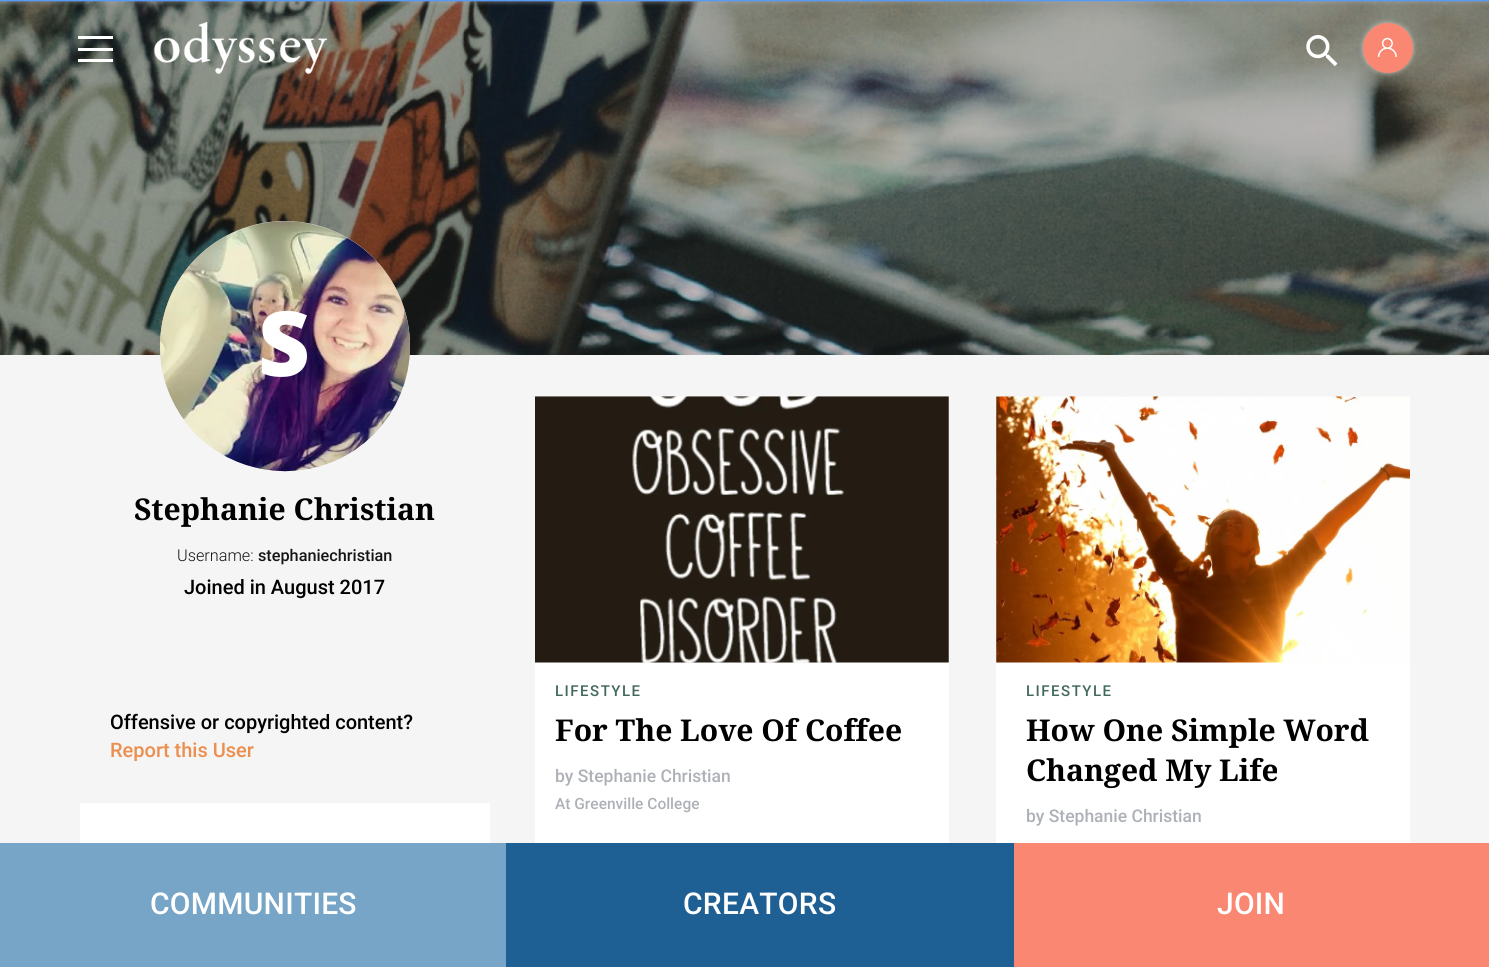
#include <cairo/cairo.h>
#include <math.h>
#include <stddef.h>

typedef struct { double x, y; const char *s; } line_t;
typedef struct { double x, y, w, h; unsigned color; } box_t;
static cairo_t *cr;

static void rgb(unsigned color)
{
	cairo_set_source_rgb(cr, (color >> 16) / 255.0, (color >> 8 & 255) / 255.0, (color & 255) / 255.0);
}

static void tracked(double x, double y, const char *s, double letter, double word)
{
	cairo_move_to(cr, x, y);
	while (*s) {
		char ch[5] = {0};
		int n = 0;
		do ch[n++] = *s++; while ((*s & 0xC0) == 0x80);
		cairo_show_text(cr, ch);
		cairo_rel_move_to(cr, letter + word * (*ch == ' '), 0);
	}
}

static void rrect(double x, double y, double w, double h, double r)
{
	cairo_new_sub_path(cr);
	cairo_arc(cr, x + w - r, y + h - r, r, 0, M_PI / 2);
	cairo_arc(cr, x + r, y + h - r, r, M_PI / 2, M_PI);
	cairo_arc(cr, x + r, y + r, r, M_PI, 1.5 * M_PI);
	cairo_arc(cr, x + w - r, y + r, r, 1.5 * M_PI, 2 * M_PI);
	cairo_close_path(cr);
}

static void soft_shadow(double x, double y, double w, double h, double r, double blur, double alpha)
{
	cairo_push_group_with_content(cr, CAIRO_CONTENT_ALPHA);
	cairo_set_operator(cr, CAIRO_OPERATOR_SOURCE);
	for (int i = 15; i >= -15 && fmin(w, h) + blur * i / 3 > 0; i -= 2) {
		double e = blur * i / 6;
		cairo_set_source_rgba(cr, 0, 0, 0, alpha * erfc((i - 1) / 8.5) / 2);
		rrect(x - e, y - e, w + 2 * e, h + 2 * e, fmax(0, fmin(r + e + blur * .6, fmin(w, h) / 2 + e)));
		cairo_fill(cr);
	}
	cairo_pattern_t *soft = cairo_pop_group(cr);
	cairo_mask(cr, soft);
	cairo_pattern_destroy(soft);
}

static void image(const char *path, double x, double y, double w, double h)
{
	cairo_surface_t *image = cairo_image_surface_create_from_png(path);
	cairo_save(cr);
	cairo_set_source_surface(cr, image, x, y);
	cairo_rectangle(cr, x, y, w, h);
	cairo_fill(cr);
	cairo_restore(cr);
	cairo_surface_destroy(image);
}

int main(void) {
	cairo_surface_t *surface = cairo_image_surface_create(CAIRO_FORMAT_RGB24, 1489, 967);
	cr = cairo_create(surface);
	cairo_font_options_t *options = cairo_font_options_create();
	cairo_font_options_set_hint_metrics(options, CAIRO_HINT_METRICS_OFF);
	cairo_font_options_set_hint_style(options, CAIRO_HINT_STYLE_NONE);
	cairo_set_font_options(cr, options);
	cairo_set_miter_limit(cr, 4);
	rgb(0xf5f5f5);
	cairo_paint(cr);
	image("img/4.png", 0, 0, 1489, 355);
	{
		static const box_t items[] = {
			{78, 36, 35, 3, 0xffffff},
			{78, 48, 35, 3, 0xffffff},
			{78, 59, 35, 3, 0xffffff},
		};
		for (size_t i = 0; i < sizeof items / sizeof *items; i++) {
			rgb(items[i].color);
			cairo_rectangle(cr, items[i].x, items[i].y, items[i].w, items[i].h);
			cairo_fill(cr);
		}
	}
	image("img/1.png", 153, 22, 175, 52);
	image("img/2.png", 1306, 35, 32, 31);
	rgb(0xffffff);
	soft_shadow(1363, 23, 50, 50, 25, 2.5, 0.5);
	rgb(0xfa8772);
	cairo_arc(cr, 1388, 48, 25, 0, 2 * M_PI);
	cairo_fill(cr);
	image("img/3.png", 1377, 37, 20, 20);
	rgb(0xcfcfcf);
	cairo_arc(cr, 285, 346, 125, 0, 2 * M_PI);
	cairo_fill(cr);
	image("img/5.png", 159, 221, 251, 251);
	rgb(0xffffff);
	cairo_rectangle(cr, 80, 803, 410, 40);
	cairo_fill(cr);
	cairo_rectangle(cr, 535, 649, 414, 194);
	cairo_fill(cr);
	image("img/6.png", 535, 396, 414, 267);
	cairo_rectangle(cr, 996, 649, 414, 194);
	cairo_fill(cr);
	image("img/7.png", 996, 396, 414, 267);
	{
		static const box_t items[] = {
			{0, 843, 506, 124, 0x77a5c7},
			{506, 843, 508, 124, 0x1e6094},
			{1014, 843, 475, 124, 0xfa8772},
		};
		for (size_t i = 0; i < sizeof items / sizeof *items; i++) {
			rgb(items[i].color);
			cairo_rectangle(cr, items[i].x, items[i].y, items[i].w, items[i].h);
			cairo_fill(cr);
		}
	}
	cairo_select_font_face(cr, "Noto Sans Black", CAIRO_FONT_SLANT_NORMAL, CAIRO_FONT_WEIGHT_NORMAL);
	cairo_set_font_size(cr, 90);
	rgb(0xffffff);
	cairo_move_to(cr, 258, 376);
	cairo_show_text(cr, "S");
	cairo_select_font_face(cr, "Noto Serif", CAIRO_FONT_SLANT_NORMAL, CAIRO_FONT_WEIGHT_BOLD);
	cairo_set_font_size(cr, 30);
	rgb(0x000000);
	cairo_move_to(cr, 134, 520);
	cairo_show_text(cr, "Stephanie Christian");
	cairo_select_font_face(cr, "Roboto Light", CAIRO_FONT_SLANT_NORMAL, CAIRO_FONT_WEIGHT_NORMAL);
	cairo_set_font_size(cr, 16.25);
	rgb(0x151515);
	cairo_move_to(cr, 177, 561);
	cairo_show_text(cr, "Username:");
	cairo_select_font_face(cr, "Roboto Medium", CAIRO_FONT_SLANT_NORMAL, CAIRO_FONT_WEIGHT_NORMAL);
	cairo_move_to(cr, 258, 561);
	cairo_show_text(cr, "stephaniechristian");
	cairo_set_font_size(cr, 20);
	rgb(0x000000);
	cairo_move_to(cr, 184, 594);
	cairo_show_text(cr, "Joined in August 2017");
	cairo_move_to(cr, 110, 729);
	cairo_show_text(cr, "Offensive or copyrighted content?");
	rgb(0xeb8e4e);
	cairo_move_to(cr, 110, 757);
	cairo_show_text(cr, "Report this User");
	cairo_set_font_size(cr, 15);
	rgb(0x426a5a);
	tracked(555, 696, "LIFESTYLE", 1.5, 0);
	cairo_select_font_face(cr, "Noto Serif", CAIRO_FONT_SLANT_NORMAL, CAIRO_FONT_WEIGHT_BOLD);
	cairo_set_font_size(cr, 30);
	rgb(0x000000);
	cairo_move_to(cr, 555, 741);
	cairo_show_text(cr, "For The Love Of Coffee");
	cairo_select_font_face(cr, "Roboto Medium", CAIRO_FONT_SLANT_NORMAL, CAIRO_FONT_WEIGHT_NORMAL);
	cairo_set_font_size(cr, 17.5);
	rgb(0xadb1b7);
	cairo_move_to(cr, 555, 782);
	cairo_show_text(cr, "by Stephanie Christian");
	cairo_set_font_size(cr, 15.5);
	cairo_move_to(cr, 555, 809);
	cairo_show_text(cr, "At Greenville College");
	cairo_set_font_size(cr, 15);
	rgb(0x426a5a);
	tracked(1026, 696, "LIFESTYLE", 1.5, 0);
	cairo_select_font_face(cr, "Noto Serif", CAIRO_FONT_SLANT_NORMAL, CAIRO_FONT_WEIGHT_BOLD);
	cairo_set_font_size(cr, 30);
	rgb(0x000000);
	cairo_move_to(cr, 1026, 741);
	cairo_show_text(cr, "How One Simple Word");
	cairo_move_to(cr, 1026, 781);
	cairo_show_text(cr, "Changed My Life");
	cairo_select_font_face(cr, "Roboto Medium", CAIRO_FONT_SLANT_NORMAL, CAIRO_FONT_WEIGHT_NORMAL);
	cairo_set_font_size(cr, 17.5);
	rgb(0xadb1b7);
	cairo_move_to(cr, 1026, 822);
	cairo_show_text(cr, "by Stephanie Christian");
	cairo_set_font_size(cr, 30);
	rgb(0xffffff);
	{
		static const line_t items[] = {
			{150, 914, "COMMUNITIES"},
			{683, 914, "CREATORS"},
			{1217, 914, "JOIN"},
		};
		for (size_t i = 0; i < sizeof items / sizeof *items; i++) {
			tracked(items[i].x, items[i].y, items[i].s, 0.25, 0);
		}
	}
	cairo_surface_write_to_png(surface, "page.png");
	cairo_font_options_destroy(options);
	cairo_destroy(cr);
	cairo_surface_destroy(surface);
	return 0;
}
